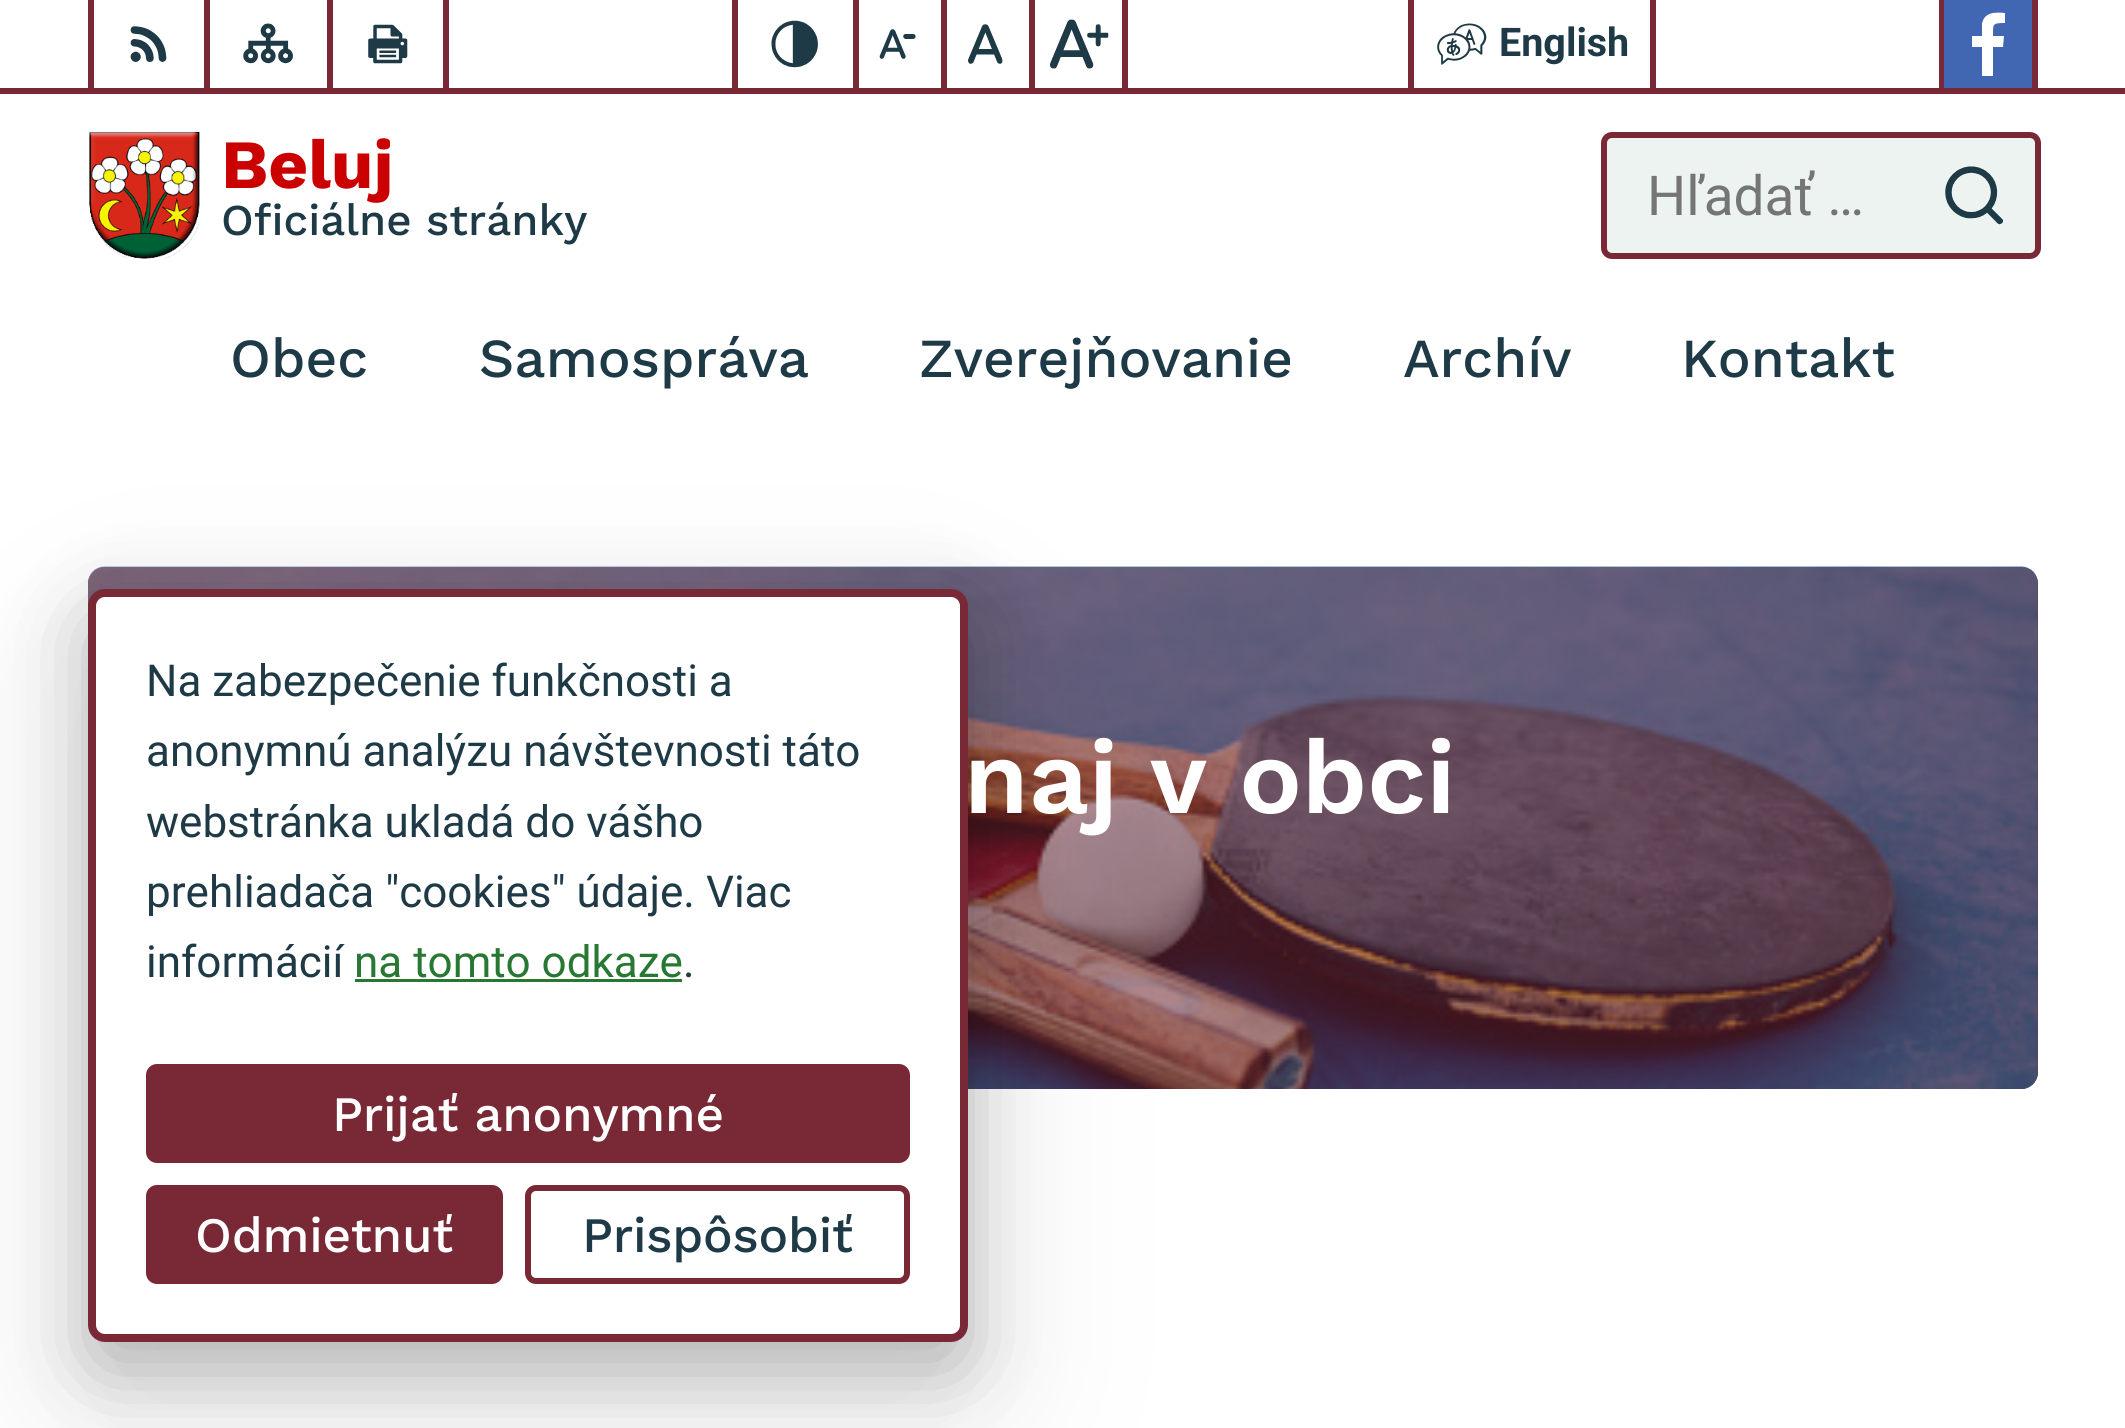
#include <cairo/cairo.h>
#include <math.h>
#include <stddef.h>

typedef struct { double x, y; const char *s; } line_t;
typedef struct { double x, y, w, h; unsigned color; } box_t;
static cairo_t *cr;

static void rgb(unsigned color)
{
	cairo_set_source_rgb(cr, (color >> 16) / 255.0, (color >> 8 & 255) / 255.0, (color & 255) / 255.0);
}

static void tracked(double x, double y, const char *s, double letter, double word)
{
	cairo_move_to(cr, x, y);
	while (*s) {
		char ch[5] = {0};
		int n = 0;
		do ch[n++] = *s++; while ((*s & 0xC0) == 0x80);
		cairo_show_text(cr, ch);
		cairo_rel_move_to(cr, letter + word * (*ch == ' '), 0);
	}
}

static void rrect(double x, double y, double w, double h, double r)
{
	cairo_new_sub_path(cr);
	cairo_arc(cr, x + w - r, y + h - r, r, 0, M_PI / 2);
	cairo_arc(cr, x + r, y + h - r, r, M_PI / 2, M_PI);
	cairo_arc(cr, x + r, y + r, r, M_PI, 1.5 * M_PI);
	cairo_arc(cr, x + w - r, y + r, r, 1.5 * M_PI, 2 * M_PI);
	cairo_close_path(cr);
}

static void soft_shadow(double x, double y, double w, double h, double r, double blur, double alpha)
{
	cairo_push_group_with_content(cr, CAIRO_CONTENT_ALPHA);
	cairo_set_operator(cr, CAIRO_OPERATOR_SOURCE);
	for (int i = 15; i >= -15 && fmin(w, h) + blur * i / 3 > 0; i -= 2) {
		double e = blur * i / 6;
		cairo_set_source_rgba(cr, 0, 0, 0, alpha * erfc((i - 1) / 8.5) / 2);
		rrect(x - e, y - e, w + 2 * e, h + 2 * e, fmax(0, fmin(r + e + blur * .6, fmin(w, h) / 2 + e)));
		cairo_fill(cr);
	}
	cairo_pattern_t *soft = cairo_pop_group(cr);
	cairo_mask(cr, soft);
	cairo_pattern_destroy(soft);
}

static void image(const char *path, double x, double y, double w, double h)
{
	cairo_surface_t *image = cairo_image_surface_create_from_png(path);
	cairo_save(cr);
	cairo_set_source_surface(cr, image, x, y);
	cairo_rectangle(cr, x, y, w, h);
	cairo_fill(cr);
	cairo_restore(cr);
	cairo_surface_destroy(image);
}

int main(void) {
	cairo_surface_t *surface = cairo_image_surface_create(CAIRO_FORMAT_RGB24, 2125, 1428);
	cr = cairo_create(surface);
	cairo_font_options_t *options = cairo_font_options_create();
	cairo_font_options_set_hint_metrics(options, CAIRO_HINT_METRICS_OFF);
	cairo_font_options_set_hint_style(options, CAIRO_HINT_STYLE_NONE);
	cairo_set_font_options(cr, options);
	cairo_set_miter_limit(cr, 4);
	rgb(0xffffff);
	cairo_paint(cr);
	{
		static const box_t items[] = {
			{443, 0, 6, 88, 0x792835},
			{88, 0, 6, 88, 0x792835},
			{204, 0, 6, 88, 0x792835},
		};
		for (size_t i = 0; i < sizeof items / sizeof *items; i++) {
			rgb(items[i].color);
			cairo_rectangle(cr, items[i].x, items[i].y, items[i].w, items[i].h);
			cairo_fill(cr);
		}
	}
	image("img/1.png", 130, 26, 37, 36);
	cairo_rectangle(cr, 327, 0, 6, 88);
	cairo_fill(cr);
	image("img/2.png", 243, 23, 50, 41);
	image("img/3.png", 368, 24, 40, 40);
	{
		static const box_t items[] = {
			{1122, 0, 6, 88, 0x792835},
			{732, 0, 6, 88, 0x792835},
			{853, 0, 6, 88, 0x792835},
		};
		for (size_t i = 0; i < sizeof items / sizeof *items; i++) {
			rgb(items[i].color);
			cairo_rectangle(cr, items[i].x, items[i].y, items[i].w, items[i].h);
			cairo_fill(cr);
		}
	}
	image("img/4.png", 771, 20, 47, 48);
	cairo_rectangle(cr, 941, 0, 6, 88);
	cairo_fill(cr);
	image("img/5.png", 879, 29, 37, 30);
	cairo_rectangle(cr, 1029, 0, 6, 88);
	cairo_fill(cr);
	image("img/6.png", 968, 24, 35, 40);
	image("img/7.png", 1050, 19, 59, 50);
	cairo_rectangle(cr, 1650, 0, 6, 88);
	cairo_fill(cr);
	cairo_rectangle(cr, 1408, 0, 6, 88);
	cairo_fill(cr);
	image("img/8.png", 1437, 23, 50, 42);
	{
		static const box_t items[] = {
			{2032, 0, 6, 88, 0x792835},
			{1939, 0, 5, 88, 0x792835},
			{1944, 0, 88, 88, 0x4267b2},
		};
		for (size_t i = 0; i < sizeof items / sizeof *items; i++) {
			rgb(items[i].color);
			cairo_rectangle(cr, items[i].x, items[i].y, items[i].w, items[i].h);
			cairo_fill(cr);
		}
	}
	rgb(0xffffff);
	cairo_new_path(cr);
	cairo_move_to(cr, 1993, 76);
	cairo_line_to(cr, 1993, 47);
	cairo_line_to(cr, 2003, 47);
	cairo_line_to(cr, 2004, 36);
	cairo_line_to(cr, 1993, 36);
	cairo_curve_to(cr, 1993, 24, 1992, 23, 2005, 23);
	cairo_line_to(cr, 2005, 13);
	cairo_curve_to(cr, 1995, 12, 1984, 12, 1982, 24);
	cairo_line_to(cr, 1982, 36);
	cairo_line_to(cr, 1972, 36);
	cairo_line_to(cr, 1972, 47);
	cairo_line_to(cr, 1982, 47);
	cairo_line_to(cr, 1982, 76);
	cairo_close_path(cr);
	cairo_fill(cr);
	rgb(0x792835);
	cairo_rectangle(cr, 0, 88, 2125, 6);
	cairo_fill(cr);
	image("img/9.png", 89, 132, 111, 127);
	rgb(0xecf3f0);
	rrect(1604, 135, 434, 121, 8);
	cairo_fill_preserve(cr);
	rgb(0x792835);
	cairo_set_line_width(cr, 6);
	cairo_stroke(cr);
	image("img/10.png", 1945, 166, 58, 59);
	rrect(88, 567, 1950, 522, 17);
	cairo_fill(cr);
	image("img/11.png", 88, 566, 1950, 523);
	cairo_set_source_rgba(cr, 0.475, 0.157, 0.208, 0.5);
	rrect(88, 567, 1950, 522, 17);
	cairo_fill(cr);
	rgb(0x000000);
	soft_shadow(88, 671, 880, 754, 17, 124, 0.05);
	soft_shadow(88, 644, 880, 753, 17, 82.5, 0.05);
	soft_shadow(88, 616, 880, 754, 17, 41, 0.25);
	rgb(0xffffff);
	rrect(92, 593, 872, 745, 13);
	cairo_fill_preserve(cr);
	rgb(0x792835);
	cairo_set_line_width(cr, 8);
	cairo_stroke(cr);
	rgb(0x287733);
	cairo_rectangle(cr, 355, 979, 327, 3);
	cairo_fill(cr);
	rgb(0x792835);
	rrect(149, 1067, 758, 93, 8);
	cairo_fill_preserve(cr);
	cairo_set_line_width(cr, 6);
	cairo_stroke(cr);
	rrect(149, 1188, 351, 93, 8);
	cairo_fill_preserve(cr);
	cairo_stroke(cr);
	rrect(528, 1188, 379, 93, 8);
	cairo_stroke(cr);
	cairo_select_font_face(cr, "Roboto", CAIRO_FONT_SLANT_NORMAL, CAIRO_FONT_WEIGHT_BOLD);
	cairo_set_font_size(cr, 39.5);
	rgb(0x1f3a47);
	cairo_move_to(cr, 1499, 56);
	cairo_show_text(cr, "English");
	cairo_select_font_face(cr, "Work Sans", CAIRO_FONT_SLANT_NORMAL, CAIRO_FONT_WEIGHT_BOLD);
	cairo_set_font_size(cr, 69);
	rgb(0xcb0000);
	cairo_move_to(cr, 221, 188);
	cairo_show_text(cr, "Beluj");
	cairo_select_font_face(cr, "Work Sans Medium", CAIRO_FONT_SLANT_NORMAL, CAIRO_FONT_WEIGHT_NORMAL);
	cairo_set_font_size(cr, 44);
	rgb(0x1f3a47);
	cairo_move_to(cr, 221, 235);
	cairo_show_text(cr, "Oficiálne stránky");
	cairo_select_font_face(cr, "Roboto", CAIRO_FONT_SLANT_NORMAL, CAIRO_FONT_WEIGHT_NORMAL);
	cairo_set_font_size(cr, 55);
	rgb(0x757575);
	cairo_move_to(cr, 1647, 215);
	cairo_show_text(cr, "Hľadať …");
	cairo_select_font_face(cr, "Work Sans Medium", CAIRO_FONT_SLANT_NORMAL, CAIRO_FONT_WEIGHT_NORMAL);
	rgb(0x1f3a47);
	{
		static const line_t items[] = {
			{230, 377, "Obec"},
			{479, 377, "Samospráva"},
			{919, 377, "Zverejňovanie"},
			{1403, 377, "Archív"},
			{1681, 377, "Kontakt"},
		};
		for (size_t i = 0; i < sizeof items / sizeof *items; i++) {
			cairo_move_to(cr, items[i].x, items[i].y);
			cairo_show_text(cr, items[i].s);
		}
	}
	cairo_select_font_face(cr, "Work Sans SemiBold", CAIRO_FONT_SLANT_NORMAL, CAIRO_FONT_WEIGHT_NORMAL);
	cairo_set_font_size(cr, 104.5);
	rgb(0xffffff);
	cairo_move_to(cr, 964, 813);
	cairo_show_text(cr, "naj v obci");
	cairo_select_font_face(cr, "Roboto", CAIRO_FONT_SLANT_NORMAL, CAIRO_FONT_WEIGHT_NORMAL);
	cairo_set_font_size(cr, 44);
	rgb(0x1f3a47);
	{
		static const line_t items[] = {
			{146, 696, "Na zabezpečenie funkčnosti a"},
			{146, 766, "anonymnú analýzu návštevnosti táto"},
			{146, 837, "webstránka ukladá do vášho"},
			{146, 907, "prehliadača \"cookies\" údaje. Viac"},
			{146, 977, "informácií"},
		};
		for (size_t i = 0; i < sizeof items / sizeof *items; i++) {
			cairo_move_to(cr, items[i].x, items[i].y);
			cairo_show_text(cr, items[i].s);
		}
	}
	rgb(0x287733);
	cairo_move_to(cr, 354, 977);
	cairo_show_text(cr, "na tomto odkaze");
	rgb(0x1f3a47);
	cairo_move_to(cr, 683, 977);
	cairo_show_text(cr, ".");
	cairo_select_font_face(cr, "Work Sans Medium", CAIRO_FONT_SLANT_NORMAL, CAIRO_FONT_WEIGHT_NORMAL);
	cairo_set_font_size(cr, 49.5);
	rgb(0xffffff);
	tracked(332, 1131, "Prijať anonymné", -0.25, 0);
	tracked(195, 1252, "Odmietnuť", -0.25, 0);
	rgb(0x1f3a47);
	tracked(582, 1252, "Prispôsobiť", -0.25, 0);
	cairo_surface_write_to_png(surface, "page.png");
	cairo_font_options_destroy(options);
	cairo_destroy(cr);
	cairo_surface_destroy(surface);
	return 0;
}
